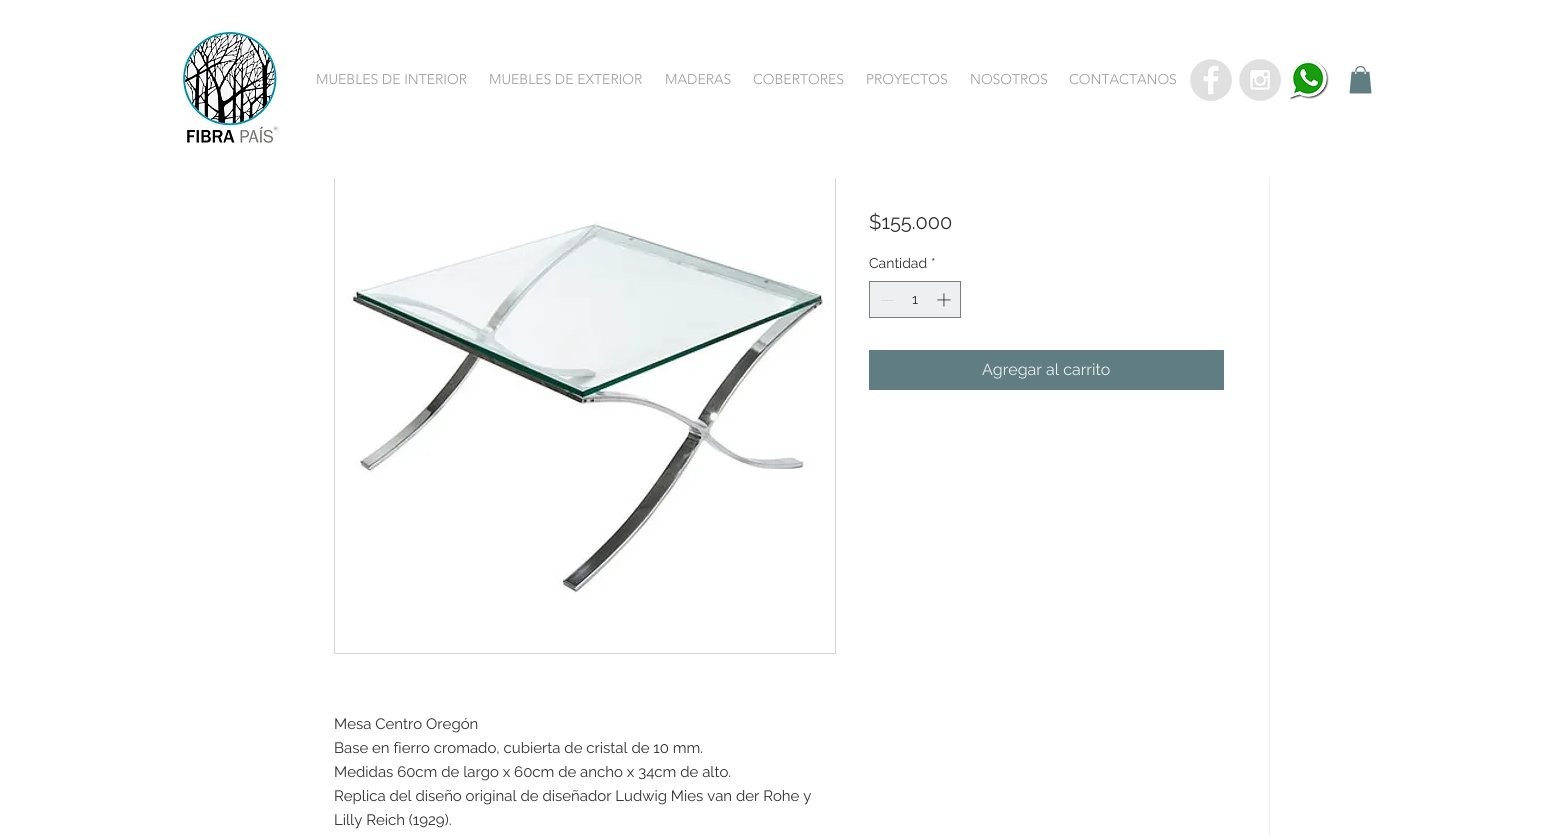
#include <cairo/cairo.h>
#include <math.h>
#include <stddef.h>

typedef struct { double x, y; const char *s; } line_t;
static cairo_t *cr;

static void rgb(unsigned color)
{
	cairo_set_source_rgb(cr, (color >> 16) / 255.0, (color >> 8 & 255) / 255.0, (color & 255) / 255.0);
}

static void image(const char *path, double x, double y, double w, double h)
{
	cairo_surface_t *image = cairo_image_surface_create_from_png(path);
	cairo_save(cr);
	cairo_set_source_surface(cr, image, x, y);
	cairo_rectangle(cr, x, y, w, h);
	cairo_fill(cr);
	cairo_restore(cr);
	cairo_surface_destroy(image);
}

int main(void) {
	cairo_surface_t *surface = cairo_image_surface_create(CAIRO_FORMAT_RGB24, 1560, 836);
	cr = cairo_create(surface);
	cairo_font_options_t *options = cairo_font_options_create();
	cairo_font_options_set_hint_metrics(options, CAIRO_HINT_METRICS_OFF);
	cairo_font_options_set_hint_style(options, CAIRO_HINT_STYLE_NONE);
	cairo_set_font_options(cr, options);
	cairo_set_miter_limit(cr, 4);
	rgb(0xffffff);
	cairo_paint(cr);
	image("img/1.png", 176, 30, 108, 114);
	image("img/2.png", 1190, 59, 42, 42);
	image("img/3.png", 1239, 59, 42, 42);
	image("img/4.png", 1289, 59, 40, 41);
	image("img/5.png", 1349, 66, 23, 28);
	cairo_rectangle(cr, 334.5, 152.5, 501, 501);
	rgb(0xd6d6d6);
	cairo_set_line_width(cr, 1);
	cairo_stroke(cr);
	rgb(0xffffff);
	cairo_rectangle(cr, 334, 152, 502, 26);
	cairo_fill(cr);
	rgb(0xedeff0);
	cairo_rectangle(cr, 869.5, 281.5, 91, 36);
	cairo_fill_preserve(cr);
	rgb(0x7b7c7c);
	cairo_stroke(cr);
	rgb(0xdadbdc);
	cairo_rectangle(cr, 881, 300, 13, 1);
	cairo_fill(cr);
	image("img/6.png", 937, 293, 14, 14);
	rgb(0x607d82);
	cairo_rectangle(cr, 869, 350, 355, 40);
	cairo_fill(cr);
	image("img/7.png", 347, 221, 483, 372);
	rgb(0xedeff0);
	cairo_rectangle(cr, 1269, 178, 1, 658);
	cairo_fill(cr);
	cairo_select_font_face(cr, "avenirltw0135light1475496 Light", CAIRO_FONT_SLANT_NORMAL, CAIRO_FONT_WEIGHT_NORMAL);
	cairo_set_font_size(cr, 14);
	rgb(0x9c9c9c);
	{
		static const line_t items[] = {
			{316, 84, "MUEBLES DE INTERIOR"},
			{489, 84, "MUEBLES DE EXTERIOR"},
			{665, 84, "MADERAS"},
			{753, 84, "COBERTORES"},
			{866, 84, "PROYECTOS"},
			{970, 84, "NOSOTROS"},
			{1069, 84, "CONTACTANOS"},
		};
		for (size_t i = 0; i < sizeof items / sizeof *items; i++) {
			cairo_move_to(cr, items[i].x, items[i].y);
			cairo_show_text(cr, items[i].s);
		}
	}
	cairo_select_font_face(cr, "Raleway", CAIRO_FONT_SLANT_NORMAL, CAIRO_FONT_WEIGHT_NORMAL);
	cairo_set_font_size(cr, 20);
	rgb(0x2f2f2f);
	cairo_move_to(cr, 869, 229);
	cairo_show_text(cr, "$155.000");
	cairo_set_font_size(cr, 14);
	{
		static const line_t items[] = {
			{869, 268, "Cantidad"},
			{931, 268, "*"},
			{912, 304, "1"},
		};
		for (size_t i = 0; i < sizeof items / sizeof *items; i++) {
			cairo_move_to(cr, items[i].x, items[i].y);
			cairo_show_text(cr, items[i].s);
		}
	}
	cairo_set_font_size(cr, 16);
	rgb(0xedeff0);
	cairo_move_to(cr, 982, 375);
	cairo_show_text(cr, "Agregar al carrito");
	cairo_set_font_size(cr, 15);
	rgb(0x2f2f2f);
	{
		static const line_t items[] = {
			{334, 729, "Mesa Centro Oregón"},
			{334, 753, "Base en fierro cromado, cubierta de cristal de 10 mm."},
			{334, 777, "Medidas 60cm de largo x 60cm de ancho x 34cm de alto."},
			{334, 801, "Replica del diseño original de diseñador Ludwig Mies van der Rohe y"},
			{334, 825, "Lilly Reich (1929)."},
		};
		for (size_t i = 0; i < sizeof items / sizeof *items; i++) {
			cairo_move_to(cr, items[i].x, items[i].y);
			cairo_show_text(cr, items[i].s);
		}
	}
	cairo_surface_write_to_png(surface, "page.png");
	cairo_font_options_destroy(options);
	cairo_destroy(cr);
	cairo_surface_destroy(surface);
	return 0;
}
